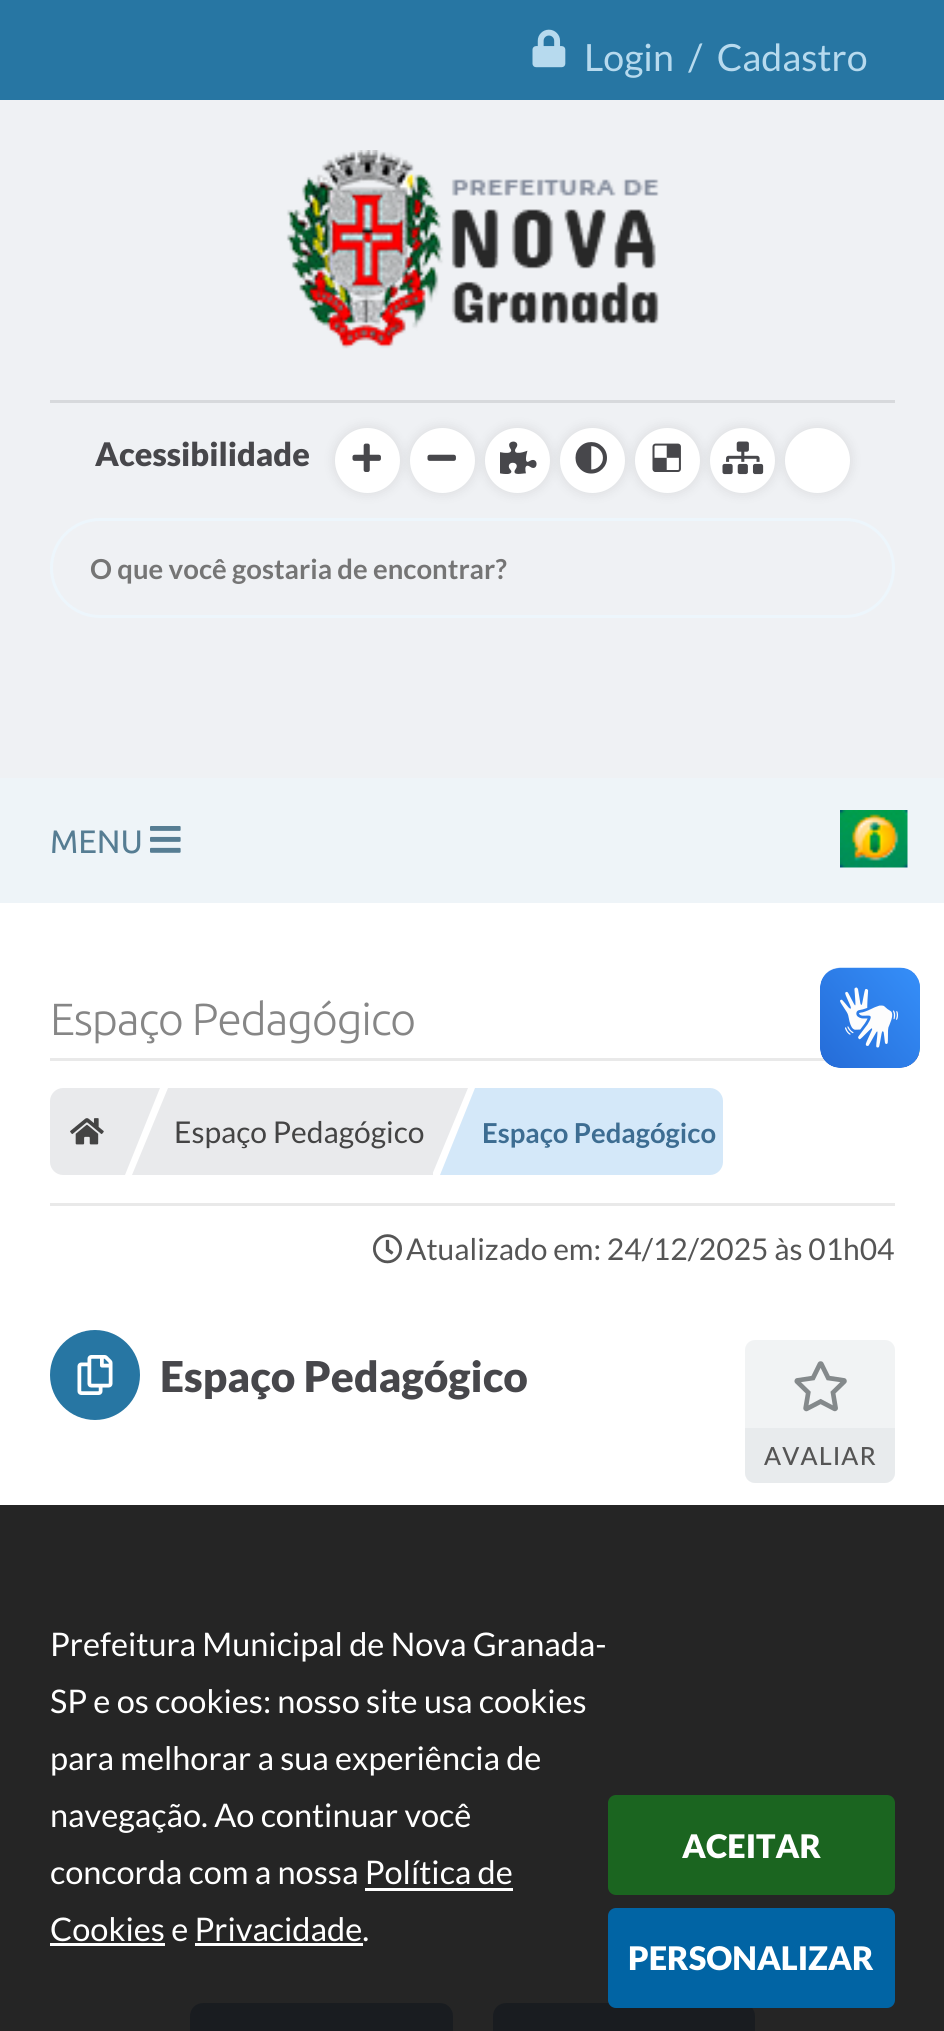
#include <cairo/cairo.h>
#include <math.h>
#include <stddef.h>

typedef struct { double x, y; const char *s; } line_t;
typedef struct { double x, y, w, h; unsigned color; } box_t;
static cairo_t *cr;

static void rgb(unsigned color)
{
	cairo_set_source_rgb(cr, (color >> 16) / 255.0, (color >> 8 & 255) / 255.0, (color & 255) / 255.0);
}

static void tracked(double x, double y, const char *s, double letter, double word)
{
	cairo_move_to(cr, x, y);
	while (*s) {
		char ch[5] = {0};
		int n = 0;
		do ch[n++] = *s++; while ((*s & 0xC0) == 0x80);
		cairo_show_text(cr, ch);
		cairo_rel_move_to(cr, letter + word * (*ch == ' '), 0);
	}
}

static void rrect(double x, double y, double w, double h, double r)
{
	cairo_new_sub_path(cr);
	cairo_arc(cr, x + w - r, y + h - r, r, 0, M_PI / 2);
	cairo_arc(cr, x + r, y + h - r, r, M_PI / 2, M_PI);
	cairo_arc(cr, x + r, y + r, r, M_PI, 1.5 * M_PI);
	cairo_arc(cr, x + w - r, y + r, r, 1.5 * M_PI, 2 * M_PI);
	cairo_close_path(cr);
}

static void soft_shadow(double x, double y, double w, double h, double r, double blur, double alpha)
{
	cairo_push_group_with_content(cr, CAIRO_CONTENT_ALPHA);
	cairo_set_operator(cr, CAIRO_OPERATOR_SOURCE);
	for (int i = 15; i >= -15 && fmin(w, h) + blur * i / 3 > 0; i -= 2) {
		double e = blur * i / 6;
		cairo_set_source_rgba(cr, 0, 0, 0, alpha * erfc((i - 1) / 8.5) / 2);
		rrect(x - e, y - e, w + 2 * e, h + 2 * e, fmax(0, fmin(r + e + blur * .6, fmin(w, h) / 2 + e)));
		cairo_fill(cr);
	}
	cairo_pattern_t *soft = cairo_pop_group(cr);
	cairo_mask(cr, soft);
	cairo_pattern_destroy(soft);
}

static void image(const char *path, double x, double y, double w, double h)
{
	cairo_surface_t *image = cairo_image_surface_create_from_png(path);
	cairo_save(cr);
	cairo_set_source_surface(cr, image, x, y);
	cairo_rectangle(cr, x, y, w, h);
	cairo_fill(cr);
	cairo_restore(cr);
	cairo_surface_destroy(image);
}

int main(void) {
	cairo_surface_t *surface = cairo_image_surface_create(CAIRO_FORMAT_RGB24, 944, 2031);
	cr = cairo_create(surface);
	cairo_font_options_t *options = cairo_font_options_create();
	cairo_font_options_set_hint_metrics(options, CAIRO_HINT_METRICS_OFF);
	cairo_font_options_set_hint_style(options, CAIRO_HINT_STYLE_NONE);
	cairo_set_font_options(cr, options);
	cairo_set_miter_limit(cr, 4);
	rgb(0xeff1f4);
	cairo_paint(cr);
	rgb(0x2776a3);
	cairo_rectangle(cr, 0, 0, 944, 100);
	cairo_fill(cr);
	image("img/1.png", 532, 29, 34, 39);
	rgb(0xffffff);
	cairo_rectangle(cr, 0, 903, 944, 602);
	cairo_fill(cr);
	rgb(0xe9e9e9);
	cairo_rectangle(cr, 50, 1058, 775, 3);
	cairo_fill(cr);
	image("img/2.png", 820, 967, 100, 101);
	image("img/3.png", 820, 968, 100, 100);
	{
		static const box_t items[] = {
			{0, 1505, 944, 526, 0x252525},
			{365, 1888, 148, 3, 0xffffff},
			{50, 1943, 115, 3, 0xffffff},
			{195, 1943, 168, 3, 0xffffff},
		};
		for (size_t i = 0; i < sizeof items / sizeof *items; i++) {
			rgb(items[i].color);
			cairo_rectangle(cr, items[i].x, items[i].y, items[i].w, items[i].h);
			cairo_fill(cr);
		}
	}
	rgb(0x1b6520);
	rrect(608, 1795, 287, 100, 8);
	cairo_fill(cr);
	rgb(0x191c20);
	rrect(493, 2003, 262, 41, 13);
	cairo_fill(cr);
	rgb(0x0164a4);
	rrect(608, 1908, 287, 100, 8);
	cairo_fill(cr);
	image("img/4.png", 286, 150, 373, 199);
	rgb(0xd7d9dc);
	cairo_rectangle(cr, 50, 400, 845, 3);
	cairo_fill(cr);
	rgb(0x000000);
	soft_shadow(335, 428, 65, 65, 32.5, 6, 0.1);
	rgb(0xffffff);
	cairo_arc(cr, 367.5, 460.5, 32.5, 0, 2 * M_PI);
	cairo_fill(cr);
	image("img/5.png", 352, 443, 29, 29);
	rgb(0x000000);
	soft_shadow(410, 428, 65, 65, 32.5, 6, 0.1);
	rgb(0xffffff);
	cairo_arc(cr, 442.5, 460.5, 32.5, 0, 2 * M_PI);
	cairo_fill(cr);
	image("img/6.png", 427, 454, 29, 7);
	rgb(0x000000);
	soft_shadow(485, 428, 65, 65, 32.5, 6, 0.1);
	rgb(0xffffff);
	cairo_arc(cr, 517.5, 460.5, 32.5, 0, 2 * M_PI);
	cairo_fill(cr);
	image("img/7.png", 500, 441, 37, 33);
	rgb(0x000000);
	soft_shadow(560, 428, 65, 65, 32.5, 6, 0.1);
	rgb(0xffffff);
	cairo_arc(cr, 592.5, 460.5, 32.5, 0, 2 * M_PI);
	cairo_fill(cr);
	image("img/8.png", 575, 442, 32, 32);
	rgb(0x000000);
	soft_shadow(635, 428, 65, 65, 32.5, 6, 0.1);
	rgb(0xffffff);
	cairo_arc(cr, 667.5, 460.5, 32.5, 0, 2 * M_PI);
	cairo_fill(cr);
	image("img/9.png", 652, 443, 29, 29);
	rgb(0x000000);
	soft_shadow(710, 428, 65, 65, 32.5, 6, 0.1);
	rgb(0xffffff);
	cairo_arc(cr, 742.5, 460.5, 32.5, 0, 2 * M_PI);
	cairo_fill(cr);
	image("img/10.png", 722, 441, 42, 34);
	rgb(0x000000);
	soft_shadow(785, 428, 65, 65, 32.5, 6, 0.1);
	rgb(0xffffff);
	cairo_arc(cr, 817.5, 460.5, 32.5, 0, 2 * M_PI);
	cairo_fill(cr);
	rrect(51.5, 519.5, 842, 97, 48.5);
	rgb(0xedf6fc);
	cairo_set_line_width(cr, 3);
	cairo_stroke(cr);
	rgb(0xeef4f8);
	cairo_rectangle(cr, 0, 778, 944, 125);
	cairo_fill(cr);
	image("img/11.png", 150, 826, 31, 27);
	image("img/12.png", 840, 810, 68, 58);
	rgb(0xe9e9e9);
	cairo_rectangle(cr, 50, 1203, 845, 3);
	cairo_fill(cr);
	rgb(0xe9eaec);
	cairo_new_path(cr);
	cairo_move_to(cr, 63, 1088);
	cairo_line_to(cr, 125, 1088);
	cairo_line_to(cr, 125, 1175);
	cairo_line_to(cr, 63, 1175);
	cairo_curve_to(cr, 56, 1175, 50, 1169, 50, 1162);
	cairo_line_to(cr, 50, 1101);
	cairo_curve_to(cr, 50, 1094, 56, 1088, 63, 1088);
	cairo_close_path(cr);
	cairo_fill(cr);
	image("img/13.png", 70, 1118, 34, 27);
	cairo_new_path(cr);
	cairo_move_to(cr, 125, 1088);
	cairo_line_to(cr, 160, 1088);
	cairo_line_to(cr, 125, 1175);
	cairo_close_path(cr);
	cairo_fill(cr);
	cairo_rectangle(cr, 168, 1088, 265, 87);
	cairo_fill(cr);
	cairo_new_path(cr);
	cairo_move_to(cr, 168, 1175);
	cairo_line_to(cr, 132, 1175);
	cairo_line_to(cr, 168, 1088);
	cairo_close_path(cr);
	cairo_fill(cr);
	cairo_new_path(cr);
	cairo_move_to(cr, 432, 1088);
	cairo_line_to(cr, 468, 1088);
	cairo_line_to(cr, 432, 1175);
	cairo_close_path(cr);
	cairo_fill(cr);
	rgb(0xd4e8f9);
	cairo_new_path(cr);
	cairo_move_to(cr, 475, 1088);
	cairo_line_to(cr, 710, 1088);
	cairo_curve_to(cr, 717, 1088, 723, 1094, 723, 1101);
	cairo_line_to(cr, 723, 1162);
	cairo_curve_to(cr, 723, 1169, 717, 1175, 710, 1175);
	cairo_line_to(cr, 475, 1175);
	cairo_close_path(cr);
	cairo_fill(cr);
	cairo_new_path(cr);
	cairo_move_to(cr, 475, 1175);
	cairo_line_to(cr, 440, 1175);
	cairo_line_to(cr, 475, 1088);
	cairo_close_path(cr);
	cairo_fill(cr);
	image("img/14.png", 373, 1234, 29, 30);
	rgb(0x2776a3);
	cairo_arc(cr, 95, 1375, 45, 0, 2 * M_PI);
	cairo_fill(cr);
	image("img/15.png", 77, 1355, 36, 40);
	rgb(0xf1f3f4);
	rrect(745, 1340, 150, 143, 10);
	cairo_fill(cr);
	image("img/16.png", 794, 1361, 53, 51);
	cairo_set_source_rgba(cr, 0.522, 0.561, 0.6, 0.08);
	cairo_new_path(cr);
	cairo_move_to(cr, 745, 1428);
	cairo_line_to(cr, 895, 1428);
	cairo_line_to(cr, 895, 1473);
	cairo_curve_to(cr, 895, 1478.5, 890.5, 1483, 885, 1483);
	cairo_line_to(cr, 755, 1483);
	cairo_curve_to(cr, 749.5, 1483, 745, 1478.5, 745, 1473);
	cairo_close_path(cr);
	cairo_fill(cr);
	rgb(0x191c20);
	rrect(190, 2003, 263, 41, 13);
	cairo_fill(cr);
	cairo_select_font_face(cr, "Lato", CAIRO_FONT_SLANT_NORMAL, CAIRO_FONT_WEIGHT_NORMAL);
	cairo_set_font_size(cr, 37.5);
	rgb(0xb7daee);
	cairo_move_to(cr, 584, 71);
	cairo_show_text(cr, "Login  /  Cadastro");
	cairo_set_font_size(cr, 32.5);
	rgb(0xffffff);
	{
		static const line_t items[] = {
			{50, 1656, "Prefeitura Municipal de Nova Granada-"},
			{50, 1713, "SP e os cookies: nosso site usa cookies"},
			{50, 1770, "para melhorar a sua experiência de"},
			{50, 1827, "navegação. Ao continuar você"},
			{50, 1884, "concorda com a nossa Política de"},
			{50, 1941, "Cookies e Privacidade."},
		};
		for (size_t i = 0; i < sizeof items / sizeof *items; i++) {
			cairo_move_to(cr, items[i].x, items[i].y);
			cairo_show_text(cr, items[i].s);
		}
	}
	cairo_select_font_face(cr, "Lato Black", CAIRO_FONT_SLANT_NORMAL, CAIRO_FONT_WEIGHT_NORMAL);
	cairo_move_to(cr, 682, 1858);
	cairo_show_text(cr, "ACEITAR");
	cairo_move_to(cr, 628, 1970);
	cairo_show_text(cr, "PERSONALIZAR");
	rgb(0x47474b);
	cairo_move_to(cr, 95, 466);
	cairo_show_text(cr, "Acessibilidade");
	cairo_select_font_face(cr, "Lato", CAIRO_FONT_SLANT_NORMAL, CAIRO_FONT_WEIGHT_BOLD);
	cairo_set_font_size(cr, 27.5);
	rgb(0x757575);
	cairo_move_to(cr, 90, 579);
	cairo_show_text(cr, "O que você gostaria de encontrar?");
	cairo_select_font_face(cr, "Ubuntu", CAIRO_FONT_SLANT_NORMAL, CAIRO_FONT_WEIGHT_NORMAL);
	cairo_set_font_size(cr, 32.5);
	rgb(0x567d93);
	cairo_move_to(cr, 50, 853);
	cairo_show_text(cr, "MENU");
	cairo_select_font_face(cr, "Ubuntu Light", CAIRO_FONT_SLANT_NORMAL, CAIRO_FONT_WEIGHT_NORMAL);
	cairo_set_font_size(cr, 45);
	rgb(0x868686);
	tracked(50, 1035, "Espaço Pedagógico", -1.25, 0);
	cairo_select_font_face(cr, "Lato", CAIRO_FONT_SLANT_NORMAL, CAIRO_FONT_WEIGHT_NORMAL);
	cairo_set_font_size(cr, 30);
	rgb(0x444444);
	cairo_move_to(cr, 174, 1143);
	cairo_show_text(cr, "Espaço Pedagógico");
	cairo_select_font_face(cr, "Lato", CAIRO_FONT_SLANT_NORMAL, CAIRO_FONT_WEIGHT_BOLD);
	cairo_set_font_size(cr, 27.5);
	rgb(0x3d6d92);
	cairo_move_to(cr, 482, 1143);
	cairo_show_text(cr, "Espaço Pedagógico");
	cairo_select_font_face(cr, "Lato", CAIRO_FONT_SLANT_NORMAL, CAIRO_FONT_WEIGHT_NORMAL);
	cairo_set_font_size(cr, 30);
	rgb(0x555555);
	cairo_move_to(cr, 406, 1260);
	cairo_show_text(cr, "Atualizado em: 24/12/2025 às 01h04");
	cairo_select_font_face(cr, "Lato Black", CAIRO_FONT_SLANT_NORMAL, CAIRO_FONT_WEIGHT_NORMAL);
	cairo_set_font_size(cr, 42.5);
	rgb(0x47474b);
	cairo_move_to(cr, 160, 1392);
	cairo_show_text(cr, "Espaço Pedagógico");
	cairo_select_font_face(cr, "Lato Medium", CAIRO_FONT_SLANT_NORMAL, CAIRO_FONT_WEIGHT_NORMAL);
	cairo_set_font_size(cr, 25);
	rgb(0x555555);
	tracked(764, 1465, "AVALIAR", 1.25, 0);
	cairo_surface_write_to_png(surface, "page.png");
	cairo_font_options_destroy(options);
	cairo_destroy(cr);
	cairo_surface_destroy(surface);
	return 0;
}
